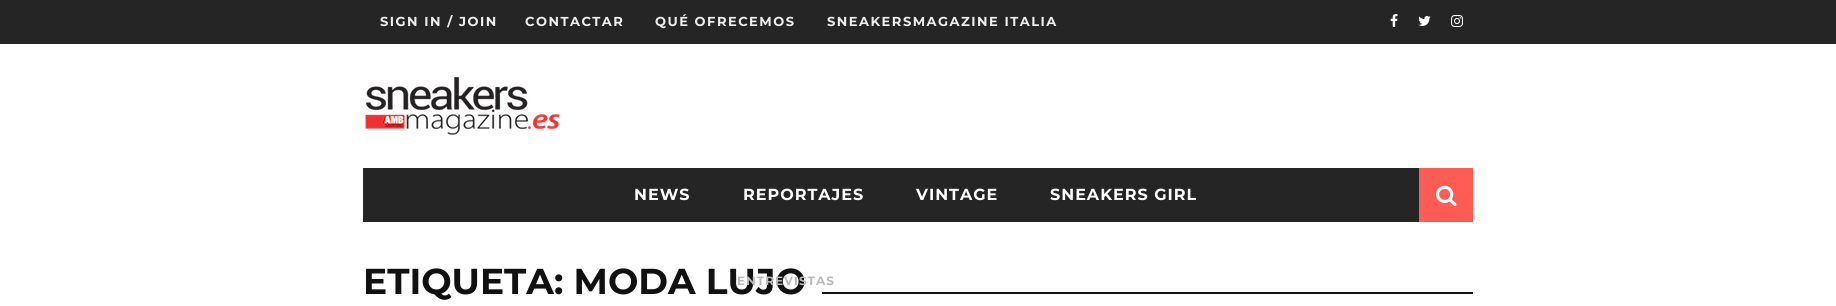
#include <cairo/cairo.h>
#include <math.h>
#include <stddef.h>

typedef struct { double x, y; const char *s; } line_t;
static cairo_t *cr;

static void rgb(unsigned color)
{
	cairo_set_source_rgb(cr, (color >> 16) / 255.0, (color >> 8 & 255) / 255.0, (color & 255) / 255.0);
}

static void tracked(double x, double y, const char *s, double letter, double word)
{
	cairo_move_to(cr, x, y);
	while (*s) {
		char ch[5] = {0};
		int n = 0;
		do ch[n++] = *s++; while ((*s & 0xC0) == 0x80);
		cairo_show_text(cr, ch);
		cairo_rel_move_to(cr, letter + word * (*ch == ' '), 0);
	}
}

static void image(const char *path, double x, double y, double w, double h)
{
	cairo_surface_t *image = cairo_image_surface_create_from_png(path);
	cairo_save(cr);
	cairo_set_source_surface(cr, image, x, y);
	cairo_rectangle(cr, x, y, w, h);
	cairo_fill(cr);
	cairo_restore(cr);
	cairo_surface_destroy(image);
}

int main(void) {
	cairo_surface_t *surface = cairo_image_surface_create(CAIRO_FORMAT_RGB24, 1836, 306);
	cr = cairo_create(surface);
	cairo_font_options_t *options = cairo_font_options_create();
	cairo_font_options_set_hint_metrics(options, CAIRO_HINT_METRICS_OFF);
	cairo_font_options_set_hint_style(options, CAIRO_HINT_STYLE_NONE);
	cairo_set_font_options(cr, options);
	cairo_set_miter_limit(cr, 4);
	rgb(0xffffff);
	cairo_paint(cr);
	rgb(0x252525);
	cairo_rectangle(cr, 0, 0, 1836, 44);
	cairo_fill(cr);
	image("img/1.png", 1390, 14, 8, 13);
	image("img/2.png", 1418, 16, 13, 10);
	image("img/3.png", 1451, 15, 12, 12);
	image("img/4.png", 365, 76, 195, 59);
	cairo_rectangle(cr, 363, 168, 1056, 54);
	cairo_fill(cr);
	rgb(0xff5c56);
	cairo_rectangle(cr, 1419, 168, 54, 54);
	cairo_fill(cr);
	image("img/5.png", 1436, 185, 21, 22);
	rgb(0x111111);
	cairo_rectangle(cr, 822, 292, 651, 2);
	cairo_fill(cr);
	cairo_select_font_face(cr, "Montserrat", CAIRO_FONT_SLANT_NORMAL, CAIRO_FONT_WEIGHT_BOLD);
	cairo_set_font_size(cr, 13);
	rgb(0xeeeeee);
	{
		static const line_t items[] = {
			{380, 26, "SIGN IN / JOIN"},
			{525, 26, "CONTACTAR"},
			{655, 26, "QUÉ OFRECEMOS"},
			{827, 26, "SNEAKERSMAGAZINE ITALIA"},
		};
		for (size_t i = 0; i < sizeof items / sizeof *items; i++) {
			tracked(items[i].x, items[i].y, items[i].s, 1.5, 0);
		}
	}
	cairo_set_font_size(cr, 16);
	rgb(0xffffff);
	{
		static const line_t items[] = {
			{634, 200, "NEWS"},
			{743, 200, "REPORTAJES"},
			{916, 200, "VINTAGE"},
			{1050, 200, "SNEAKERS GIRL"},
		};
		for (size_t i = 0; i < sizeof items / sizeof *items; i++) {
			tracked(items[i].x, items[i].y, items[i].s, 1, 0);
		}
	}
	cairo_set_font_size(cr, 36);
	rgb(0x111111);
	cairo_move_to(cr, 363, 294);
	cairo_show_text(cr, "ETIQUETA: MODA LUJO");
	cairo_set_font_size(cr, 12);
	rgb(0xbbbbbb);
	tracked(737, 285, "ENTREVISTAS", 1, 0);
	cairo_surface_write_to_png(surface, "page.png");
	cairo_font_options_destroy(options);
	cairo_destroy(cr);
	cairo_surface_destroy(surface);
	return 0;
}
